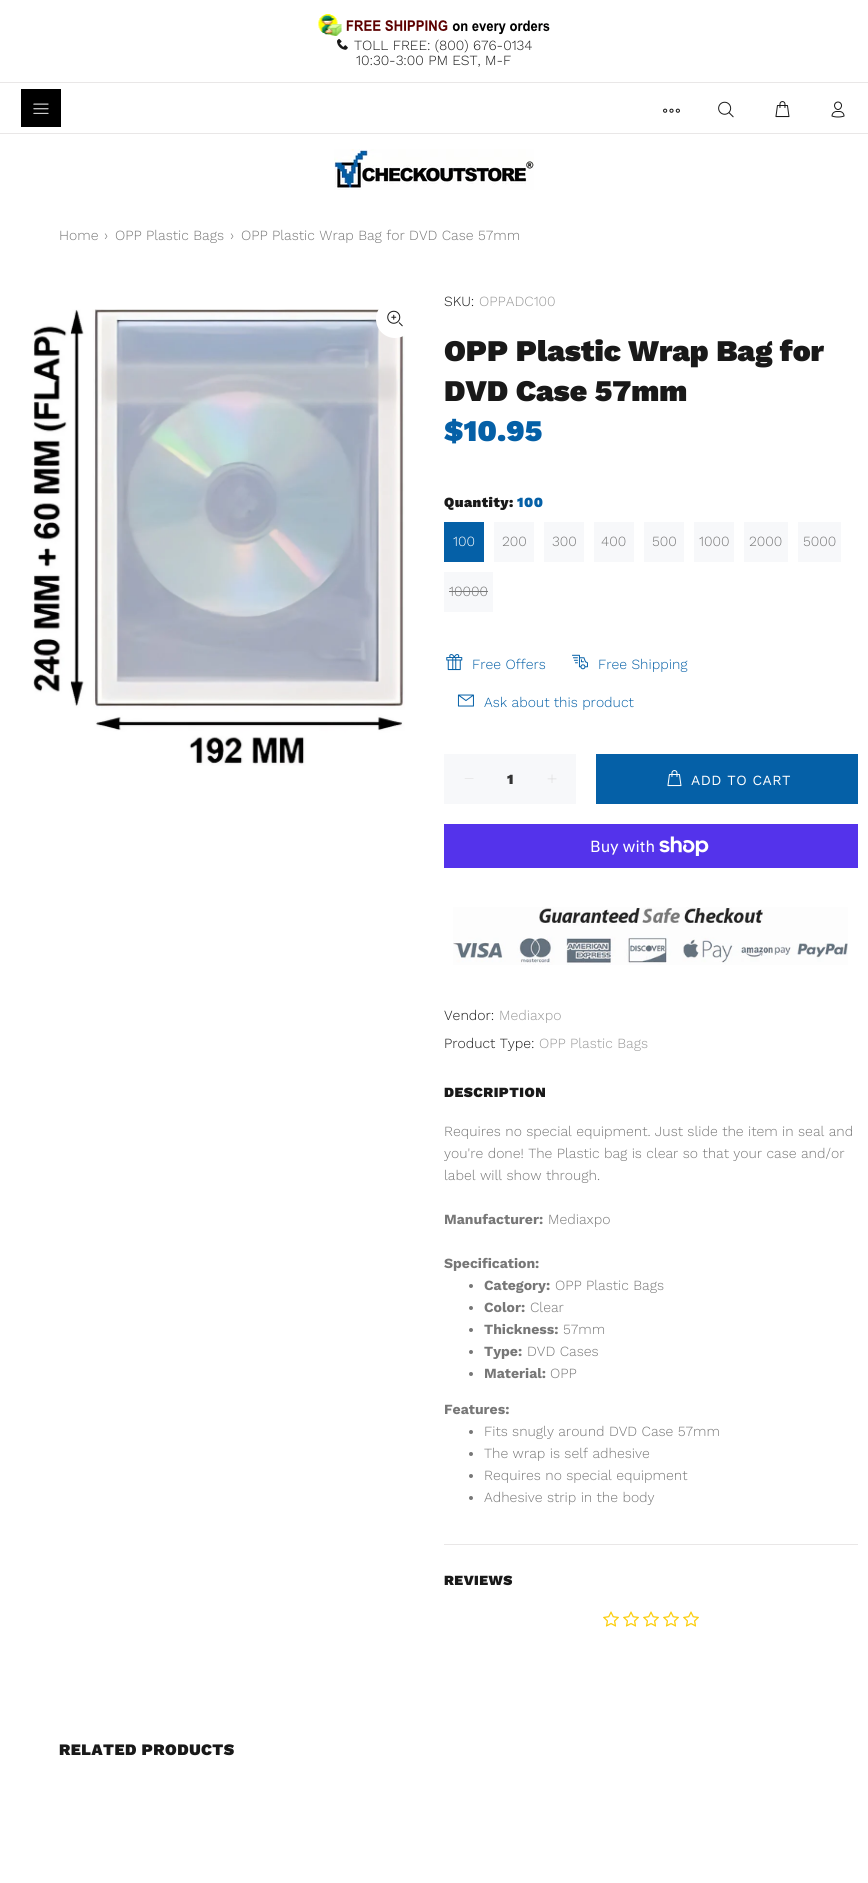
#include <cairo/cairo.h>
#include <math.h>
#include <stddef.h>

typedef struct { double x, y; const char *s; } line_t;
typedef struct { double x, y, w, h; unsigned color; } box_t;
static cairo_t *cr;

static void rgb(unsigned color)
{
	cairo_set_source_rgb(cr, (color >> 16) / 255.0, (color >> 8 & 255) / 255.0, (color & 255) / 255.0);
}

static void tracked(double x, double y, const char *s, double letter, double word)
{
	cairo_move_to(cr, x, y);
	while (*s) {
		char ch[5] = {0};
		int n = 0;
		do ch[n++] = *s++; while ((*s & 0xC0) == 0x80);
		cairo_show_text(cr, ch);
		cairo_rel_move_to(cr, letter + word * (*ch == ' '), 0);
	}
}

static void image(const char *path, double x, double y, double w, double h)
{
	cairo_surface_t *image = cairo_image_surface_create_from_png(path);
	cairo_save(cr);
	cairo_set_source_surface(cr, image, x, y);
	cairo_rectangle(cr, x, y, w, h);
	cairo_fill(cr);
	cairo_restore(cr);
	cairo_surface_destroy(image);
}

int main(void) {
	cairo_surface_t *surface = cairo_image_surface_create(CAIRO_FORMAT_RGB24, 868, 1883);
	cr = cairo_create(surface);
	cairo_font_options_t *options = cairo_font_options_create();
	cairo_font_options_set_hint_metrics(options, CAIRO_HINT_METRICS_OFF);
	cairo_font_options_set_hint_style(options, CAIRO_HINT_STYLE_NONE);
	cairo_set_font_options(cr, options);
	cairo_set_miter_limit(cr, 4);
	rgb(0xffffff);
	cairo_paint(cr);
	image("img/1.png", 318, 14, 232, 22);
	image("img/2.png", 337, 38, 11, 12);
	rgb(0xe9e7e7);
	cairo_rectangle(cr, 0, 82, 868, 1);
	cairo_fill(cr);
	rgb(0x000000);
	cairo_rectangle(cr, 21, 89, 40, 38);
	cairo_fill(cr);
	image("img/3.png", 33, 103, 16, 11);
	image("img/4.png", 663, 108, 17, 5);
	image("img/5.png", 718, 101, 16, 17);
	image("img/6.png", 775, 101, 15, 17);
	image("img/7.png", 831, 101, 14, 17);
	rgb(0xe9e7e7);
	cairo_rectangle(cr, 0, 133, 868, 1);
	cairo_fill(cr);
	image("img/8.png", 334, 149, 200, 41);
	image("img/10.png", 33, 309, 372, 457);
	rgb(0xffffff);
	cairo_arc(cr, 395, 319, 19, 0, 2 * M_PI);
	cairo_fill(cr);
	image("img/9.png", 387, 310, 16, 17);
	{
		static const box_t items[] = {
			{444, 522, 40, 40, 0x0560a7},
			{494, 522, 40, 40, 0xf7f8fa},
			{544, 522, 40, 40, 0xf7f8fa},
			{594, 522, 40, 40, 0xf7f8fa},
			{644, 522, 40, 40, 0xf7f8fa},
			{694, 522, 40, 40, 0xf7f8fa},
			{744, 522, 44, 40, 0xf7f8fa},
			{798, 522, 43, 40, 0xf7f8fa},
			{444, 572, 49, 40, 0xf7f8fa},
			{449, 591, 39, 1, 0x777777},
		};
		for (size_t i = 0; i < sizeof items / sizeof *items; i++) {
			rgb(items[i].color);
			cairo_rectangle(cr, items[i].x, items[i].y, items[i].w, items[i].h);
			cairo_fill(cr);
		}
	}
	image("img/11.png", 446, 654, 17, 17);
	image("img/12.png", 572, 654, 16, 16);
	image("img/13.png", 457, 694, 17, 13);
	rgb(0xf7f8fa);
	cairo_rectangle(cr, 444, 754, 132, 50);
	cairo_fill(cr);
	rgb(0xd8d8d8);
	cairo_new_path(cr);
	cairo_move_to(cr, 473.5, 778.5);
	cairo_line_to(cr, 473.5, 779);
	cairo_line_to(cr, 464.5, 779);
	cairo_line_to(cr, 465, 778.5);
	cairo_close_path(cr);
	cairo_fill(cr);
	image("img/14.png", 547, 774, 10, 9);
	rgb(0x0560a7);
	cairo_rectangle(cr, 596, 754, 262, 50);
	cairo_fill(cr);
	image("img/15.png", 667, 770, 15, 17);
	rgb(0x5433eb);
	cairo_rectangle(cr, 444, 824, 414, 44);
	cairo_fill(cr);
	image("img/16.png", 659, 836, 50, 20);
	image("img/17.png", 453, 907, 395, 58);
	rgb(0xe9e7e7);
	cairo_rectangle(cr, 444, 1544, 414, 1);
	cairo_fill(cr);
	rgb(0x777777);
	cairo_arc(cr, 471, 1286, 2, 0, 2 * M_PI);
	cairo_fill(cr);
	cairo_arc(cr, 471, 1308, 2, 0, 2 * M_PI);
	cairo_fill(cr);
	cairo_arc(cr, 471, 1330, 2, 0, 2 * M_PI);
	cairo_fill(cr);
	cairo_arc(cr, 471, 1352, 2, 0, 2 * M_PI);
	cairo_fill(cr);
	cairo_arc(cr, 471, 1374, 2, 0, 2 * M_PI);
	cairo_fill(cr);
	cairo_arc(cr, 471, 1432, 2, 0, 2 * M_PI);
	cairo_fill(cr);
	cairo_arc(cr, 471, 1454, 2, 0, 2 * M_PI);
	cairo_fill(cr);
	cairo_arc(cr, 471, 1476, 2, 0, 2 * M_PI);
	cairo_fill(cr);
	cairo_arc(cr, 471, 1498, 2, 0, 2 * M_PI);
	cairo_fill(cr);
	image("img/18.png", 603, 1611, 16, 16);
	image("img/18.png", 623, 1611, 16, 16);
	image("img/18.png", 643, 1611, 16, 16);
	image("img/18.png", 663, 1611, 16, 16);
	image("img/18.png", 683, 1611, 16, 16);
	cairo_select_font_face(cr, "Work Sans Light", CAIRO_FONT_SLANT_NORMAL, CAIRO_FONT_WEIGHT_NORMAL);
	cairo_set_font_size(cr, 14);
	rgb(0x191919);
	cairo_move_to(cr, 354, 50);
	cairo_show_text(cr, "TOLL FREE: (800) 676-0134");
	cairo_move_to(cr, 356, 65);
	cairo_show_text(cr, "10:30-3:00 PM EST, M-F");
	rgb(0x777777);
	{
		static const line_t items[] = {
			{59, 240, "Home"},
			{104, 240, "›"},
			{115, 240, "OPP Plastic Bags"},
			{230, 240, "›"},
			{241, 240, "OPP Plastic Wrap Bag for DVD Case 57mm"},
		};
		for (size_t i = 0; i < sizeof items / sizeof *items; i++) {
			cairo_move_to(cr, items[i].x, items[i].y);
			cairo_show_text(cr, items[i].s);
		}
	}
	rgb(0x191919);
	cairo_move_to(cr, 444, 306);
	cairo_show_text(cr, "SKU:");
	rgb(0x999999);
	cairo_move_to(cr, 479, 306);
	cairo_show_text(cr, "OPPADC100");
	cairo_select_font_face(cr, "Work Sans Black", CAIRO_FONT_SLANT_NORMAL, CAIRO_FONT_WEIGHT_NORMAL);
	cairo_set_font_size(cr, 30);
	rgb(0x191919);
	cairo_move_to(cr, 444, 361);
	cairo_show_text(cr, "OPP Plastic Wrap Bag for");
	cairo_move_to(cr, 444, 401);
	cairo_show_text(cr, "DVD Case 57mm");
	rgb(0x0560a7);
	cairo_move_to(cr, 444, 441);
	cairo_show_text(cr, "$10.95");
	cairo_set_font_size(cr, 14);
	rgb(0x191919);
	tracked(444, 507, "Quantity:", 0.5, 0);
	rgb(0x0560a7);
	tracked(517, 507, "100", 0.5, 0);
	cairo_select_font_face(cr, "Work Sans Light", CAIRO_FONT_SLANT_NORMAL, CAIRO_FONT_WEIGHT_NORMAL);
	rgb(0xffffff);
	cairo_move_to(cr, 453, 546);
	cairo_show_text(cr, "100");
	rgb(0x777777);
	{
		static const line_t items[] = {
			{502, 546, "200"},
			{552, 546, "300"},
			{601, 546, "400"},
			{652, 546, "500"},
			{699, 546, "1000"},
			{749, 546, "2000"},
			{803, 546, "5000"},
			{449, 596, "10000"},
		};
		for (size_t i = 0; i < sizeof items / sizeof *items; i++) {
			cairo_move_to(cr, items[i].x, items[i].y);
			cairo_show_text(cr, items[i].s);
		}
	}
	rgb(0x0560a7);
	{
		static const line_t items[] = {
			{472, 669, "Free Offers"},
			{598, 669, "Free Shipping"},
			{484, 707, "Ask about this product"},
		};
		for (size_t i = 0; i < sizeof items / sizeof *items; i++) {
			cairo_move_to(cr, items[i].x, items[i].y);
			cairo_show_text(cr, items[i].s);
		}
	}
	cairo_select_font_face(cr, "Work Sans Black", CAIRO_FONT_SLANT_NORMAL, CAIRO_FONT_WEIGHT_NORMAL);
	rgb(0x333333);
	cairo_move_to(cr, 507, 784);
	cairo_show_text(cr, "1");
	cairo_select_font_face(cr, "Work Sans", CAIRO_FONT_SLANT_NORMAL, CAIRO_FONT_WEIGHT_NORMAL);
	rgb(0xffffff);
	tracked(691, 785, "ADD TO CART", 0.5, 0);
	cairo_select_font_face(cr, "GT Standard", CAIRO_FONT_SLANT_NORMAL, CAIRO_FONT_WEIGHT_NORMAL);
	cairo_set_font_size(cr, 16);
	cairo_move_to(cr, 590, 852);
	cairo_show_text(cr, "Buy with");
	cairo_select_font_face(cr, "Work Sans Light", CAIRO_FONT_SLANT_NORMAL, CAIRO_FONT_WEIGHT_NORMAL);
	cairo_set_font_size(cr, 14);
	rgb(0x191919);
	cairo_move_to(cr, 444, 1020);
	cairo_show_text(cr, "Vendor:");
	rgb(0x999999);
	cairo_move_to(cr, 499, 1020);
	cairo_show_text(cr, "Mediaxpo");
	rgb(0x191919);
	cairo_move_to(cr, 444, 1048);
	cairo_show_text(cr, "Product Type:");
	rgb(0x999999);
	cairo_move_to(cr, 539, 1048);
	cairo_show_text(cr, "OPP Plastic Bags");
	cairo_select_font_face(cr, "Work Sans Black", CAIRO_FONT_SLANT_NORMAL, CAIRO_FONT_WEIGHT_NORMAL);
	rgb(0x191919);
	tracked(444, 1097, "DESCRIPTION", 0.5, 0);
	cairo_select_font_face(cr, "Work Sans Light", CAIRO_FONT_SLANT_NORMAL, CAIRO_FONT_WEIGHT_NORMAL);
	rgb(0x777777);
	{
		static const line_t items[] = {
			{444, 1136, "Requires no special equipment. Just slide the item in seal and"},
			{444, 1158, "you're done! The Plastic bag is clear so that your case and/or"},
			{444, 1180, "label will show through."},
		};
		for (size_t i = 0; i < sizeof items / sizeof *items; i++) {
			cairo_move_to(cr, items[i].x, items[i].y);
			cairo_show_text(cr, items[i].s);
		}
	}
	cairo_select_font_face(cr, "Work Sans", CAIRO_FONT_SLANT_NORMAL, CAIRO_FONT_WEIGHT_BOLD);
	cairo_move_to(cr, 444, 1224);
	cairo_show_text(cr, "Manufacturer:");
	cairo_select_font_face(cr, "Work Sans Light", CAIRO_FONT_SLANT_NORMAL, CAIRO_FONT_WEIGHT_NORMAL);
	cairo_move_to(cr, 548, 1224);
	cairo_show_text(cr, "Mediaxpo");
	cairo_select_font_face(cr, "Work Sans", CAIRO_FONT_SLANT_NORMAL, CAIRO_FONT_WEIGHT_BOLD);
	cairo_move_to(cr, 444, 1268);
	cairo_show_text(cr, "Specification:");
	cairo_move_to(cr, 484, 1290);
	cairo_show_text(cr, "Category:");
	cairo_select_font_face(cr, "Work Sans Light", CAIRO_FONT_SLANT_NORMAL, CAIRO_FONT_WEIGHT_NORMAL);
	cairo_move_to(cr, 555, 1290);
	cairo_show_text(cr, "OPP Plastic Bags");
	cairo_select_font_face(cr, "Work Sans", CAIRO_FONT_SLANT_NORMAL, CAIRO_FONT_WEIGHT_BOLD);
	cairo_move_to(cr, 484, 1312);
	cairo_show_text(cr, "Color:");
	cairo_select_font_face(cr, "Work Sans Light", CAIRO_FONT_SLANT_NORMAL, CAIRO_FONT_WEIGHT_NORMAL);
	cairo_move_to(cr, 530, 1312);
	cairo_show_text(cr, "Clear");
	cairo_select_font_face(cr, "Work Sans", CAIRO_FONT_SLANT_NORMAL, CAIRO_FONT_WEIGHT_BOLD);
	cairo_move_to(cr, 484, 1334);
	cairo_show_text(cr, "Thickness:");
	cairo_select_font_face(cr, "Work Sans Light", CAIRO_FONT_SLANT_NORMAL, CAIRO_FONT_WEIGHT_NORMAL);
	cairo_move_to(cr, 563, 1334);
	cairo_show_text(cr, "57mm");
	cairo_select_font_face(cr, "Work Sans", CAIRO_FONT_SLANT_NORMAL, CAIRO_FONT_WEIGHT_BOLD);
	cairo_move_to(cr, 484, 1356);
	cairo_show_text(cr, "Type:");
	cairo_select_font_face(cr, "Work Sans Light", CAIRO_FONT_SLANT_NORMAL, CAIRO_FONT_WEIGHT_NORMAL);
	cairo_move_to(cr, 527, 1356);
	cairo_show_text(cr, "DVD Cases");
	cairo_select_font_face(cr, "Work Sans", CAIRO_FONT_SLANT_NORMAL, CAIRO_FONT_WEIGHT_BOLD);
	cairo_move_to(cr, 484, 1378);
	cairo_show_text(cr, "Material:");
	cairo_select_font_face(cr, "Work Sans Light", CAIRO_FONT_SLANT_NORMAL, CAIRO_FONT_WEIGHT_NORMAL);
	cairo_move_to(cr, 550, 1378);
	cairo_show_text(cr, "OPP");
	cairo_select_font_face(cr, "Work Sans", CAIRO_FONT_SLANT_NORMAL, CAIRO_FONT_WEIGHT_BOLD);
	cairo_move_to(cr, 444, 1414);
	cairo_show_text(cr, "Features:");
	cairo_select_font_face(cr, "Work Sans Light", CAIRO_FONT_SLANT_NORMAL, CAIRO_FONT_WEIGHT_NORMAL);
	{
		static const line_t items[] = {
			{484, 1436, "Fits snugly around DVD Case 57mm"},
			{484, 1458, "The wrap is self adhesive"},
			{484, 1480, "Requires no special equipment"},
			{484, 1502, "Adhesive strip in the body"},
		};
		for (size_t i = 0; i < sizeof items / sizeof *items; i++) {
			cairo_move_to(cr, items[i].x, items[i].y);
			cairo_show_text(cr, items[i].s);
		}
	}
	cairo_select_font_face(cr, "Work Sans Black", CAIRO_FONT_SLANT_NORMAL, CAIRO_FONT_WEIGHT_NORMAL);
	rgb(0x191919);
	tracked(444, 1585, "REVIEWS", 0.5, 0);
	cairo_set_font_size(cr, 16);
	tracked(59, 1755, "RELATED PRODUCTS", 0.5, 0);
	cairo_surface_write_to_png(surface, "page.png");
	cairo_font_options_destroy(options);
	cairo_destroy(cr);
	cairo_surface_destroy(surface);
	return 0;
}
